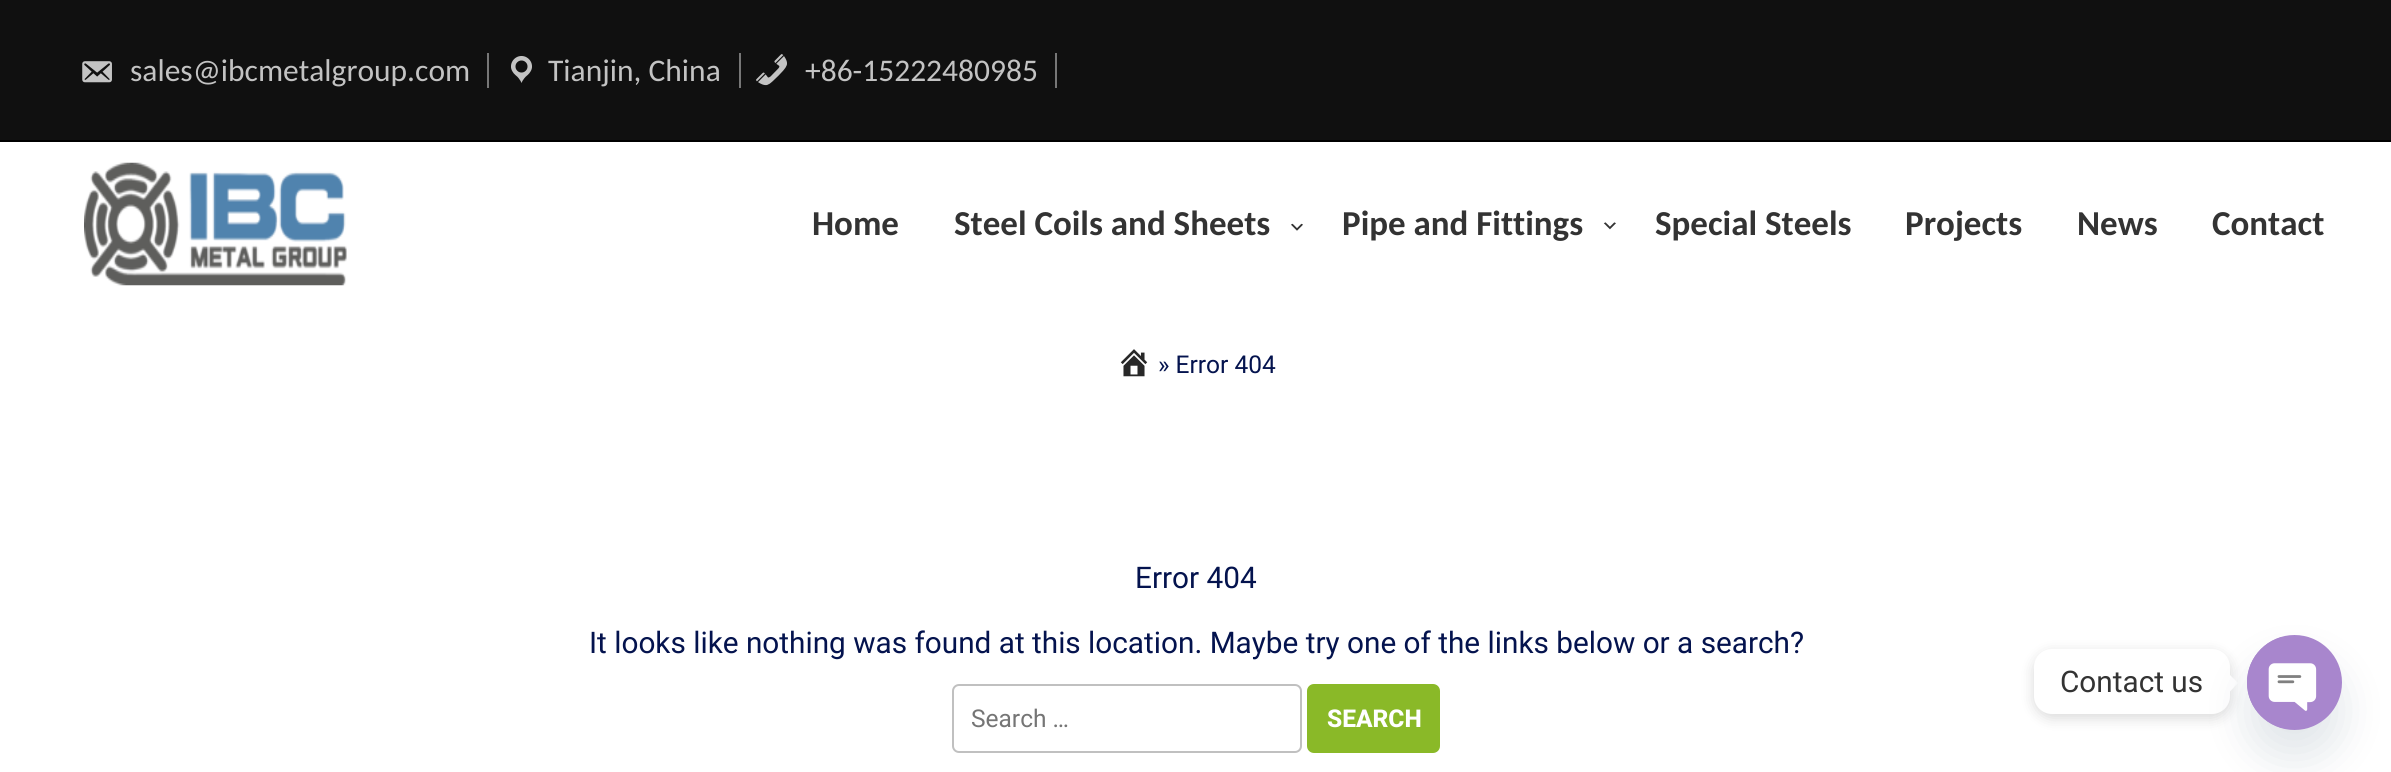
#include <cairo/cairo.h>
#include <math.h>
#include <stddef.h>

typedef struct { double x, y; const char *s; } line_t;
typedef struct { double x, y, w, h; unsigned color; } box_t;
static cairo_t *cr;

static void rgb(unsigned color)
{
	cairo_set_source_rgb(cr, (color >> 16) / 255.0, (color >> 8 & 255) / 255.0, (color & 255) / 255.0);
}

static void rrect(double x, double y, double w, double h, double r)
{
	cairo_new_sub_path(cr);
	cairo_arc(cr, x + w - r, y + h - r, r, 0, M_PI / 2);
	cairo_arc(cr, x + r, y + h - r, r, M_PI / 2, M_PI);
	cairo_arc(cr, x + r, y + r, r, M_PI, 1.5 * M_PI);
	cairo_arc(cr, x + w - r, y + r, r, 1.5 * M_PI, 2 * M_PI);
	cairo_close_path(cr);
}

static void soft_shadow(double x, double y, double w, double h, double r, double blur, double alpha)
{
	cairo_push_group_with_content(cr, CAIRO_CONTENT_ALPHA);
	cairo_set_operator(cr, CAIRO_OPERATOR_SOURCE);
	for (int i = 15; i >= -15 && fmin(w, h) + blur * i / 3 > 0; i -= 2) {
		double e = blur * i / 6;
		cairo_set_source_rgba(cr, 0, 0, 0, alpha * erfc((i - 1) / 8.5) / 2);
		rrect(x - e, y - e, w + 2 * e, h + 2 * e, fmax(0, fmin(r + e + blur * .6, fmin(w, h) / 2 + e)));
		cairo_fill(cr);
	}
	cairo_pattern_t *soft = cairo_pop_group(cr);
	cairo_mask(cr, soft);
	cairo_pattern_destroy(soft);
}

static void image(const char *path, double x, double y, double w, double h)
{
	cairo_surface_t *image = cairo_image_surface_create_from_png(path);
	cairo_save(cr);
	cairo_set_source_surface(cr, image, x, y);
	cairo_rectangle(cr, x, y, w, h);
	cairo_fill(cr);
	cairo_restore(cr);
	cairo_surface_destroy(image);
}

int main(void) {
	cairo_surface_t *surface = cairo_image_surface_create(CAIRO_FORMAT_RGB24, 2391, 772);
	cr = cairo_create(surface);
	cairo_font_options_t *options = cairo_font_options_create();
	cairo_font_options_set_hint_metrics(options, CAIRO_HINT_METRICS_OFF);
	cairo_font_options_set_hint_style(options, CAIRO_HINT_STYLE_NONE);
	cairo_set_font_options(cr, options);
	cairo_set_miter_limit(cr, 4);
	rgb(0xffffff);
	cairo_paint(cr);
	{
		static const box_t items[] = {
			{0, 0, 2391, 140, 0x101010},
			{0, 140, 2391, 2, 0x000000},
			{487, 53, 2, 35, 0x777777},
		};
		for (size_t i = 0; i < sizeof items / sizeof *items; i++) {
			rgb(items[i].color);
			cairo_rectangle(cr, items[i].x, items[i].y, items[i].w, items[i].h);
			cairo_fill(cr);
		}
	}
	image("img/1.png", 82, 61, 30, 22);
	cairo_rectangle(cr, 739, 53, 2, 35);
	cairo_fill(cr);
	image("img/2.png", 511, 56, 21, 27);
	cairo_rectangle(cr, 1055, 53, 2, 35);
	cairo_fill(cr);
	image("img/3.png", 756, 54, 31, 32);
	image("img/4.png", 84, 162, 263, 124);
	image("img/5.png", 1291, 223, 12, 8);
	image("img/6.png", 1603, 222, 13, 8);
	image("img/7.png", 1120, 349, 28, 28);
	rrect(953, 685, 348, 67, 6);
	rgb(0xc0c0c0);
	cairo_stroke(cr);
	rgb(0x8ab928);
	rrect(1307, 684, 133, 69, 7);
	cairo_fill(cr);
	rgb(0x000000);
	soft_shadow(2034, 653, 196, 65, 18, 7, 0.15);
	rgb(0xffffff);
	rrect(2034, 649, 196, 65, 18);
	cairo_fill(cr);
	cairo_new_path(cr);
	cairo_move_to(cr, 2229.5, 692);
	cairo_line_to(cr, 2229.5, 674.5);
	cairo_line_to(cr, 2238, 683);
	cairo_close_path(cr);
	cairo_fill(cr);
	rgb(0x49687e);
	soft_shadow(2247, 663, 95, 95, 47.5, 21, 0.16);
	rgb(0xa886cd);
	cairo_arc(cr, 2294.5, 682.5, 47.5, 0, 2 * M_PI);
	cairo_fill(cr);
	image("img/8.png", 2247, 637, 70, 92);
	cairo_select_font_face(cr, "Carlito", CAIRO_FONT_SLANT_NORMAL, CAIRO_FONT_WEIGHT_NORMAL);
	cairo_set_font_size(cr, 31.5);
	rgb(0xc3c3c3);
	{
		static const line_t items[] = {
			{130, 81, "sales@ibcmetalgroup.com"},
			{548, 81, "Tianjin, China"},
			{805, 81, "+86-15222480985"},
		};
		for (size_t i = 0; i < sizeof items / sizeof *items; i++) {
			cairo_move_to(cr, items[i].x, items[i].y);
			cairo_show_text(cr, items[i].s);
		}
	}
	cairo_select_font_face(cr, "Carlito", CAIRO_FONT_SLANT_NORMAL, CAIRO_FONT_WEIGHT_BOLD);
	cairo_set_font_size(cr, 35);
	rgb(0x333333);
	{
		static const line_t items[] = {
			{812, 235, "Home"},
			{954, 235, "Steel Coils and Sheets"},
			{1342, 235, "Pipe and Fittings"},
			{1655, 235, "Special Steels"},
			{1905, 235, "Projects"},
			{2077, 235, "News"},
			{2212, 235, "Contact"},
		};
		for (size_t i = 0; i < sizeof items / sizeof *items; i++) {
			cairo_move_to(cr, items[i].x, items[i].y);
			cairo_show_text(cr, items[i].s);
		}
	}
	cairo_select_font_face(cr, "Roboto", CAIRO_FONT_SLANT_NORMAL, CAIRO_FONT_WEIGHT_NORMAL);
	cairo_set_font_size(cr, 24.5);
	rgb(0x04134e);
	cairo_move_to(cr, 1158, 373);
	cairo_show_text(cr, "» Error 404");
	cairo_set_font_size(cr, 29.75);
	cairo_move_to(cr, 1135, 588);
	cairo_show_text(cr, "Error 404");
	cairo_move_to(cr, 589, 653);
	cairo_show_text(cr, "It looks like nothing was found at this location. Maybe try one of the links below or a search?");
	cairo_set_font_size(cr, 24.5);
	rgb(0x757575);
	cairo_move_to(cr, 971, 727);
	cairo_show_text(cr, "Search …");
	cairo_select_font_face(cr, "Roboto ExtraBold", CAIRO_FONT_SLANT_NORMAL, CAIRO_FONT_WEIGHT_NORMAL);
	rgb(0xffffff);
	cairo_move_to(cr, 1327, 727);
	cairo_show_text(cr, "SEARCH");
	cairo_select_font_face(cr, "Roboto", CAIRO_FONT_SLANT_NORMAL, CAIRO_FONT_WEIGHT_NORMAL);
	cairo_set_font_size(cr, 29.75);
	rgb(0x333333);
	cairo_move_to(cr, 2060, 692);
	cairo_show_text(cr, "Contact us");
	cairo_surface_write_to_png(surface, "page.png");
	cairo_font_options_destroy(options);
	cairo_destroy(cr);
	cairo_surface_destroy(surface);
	return 0;
}
